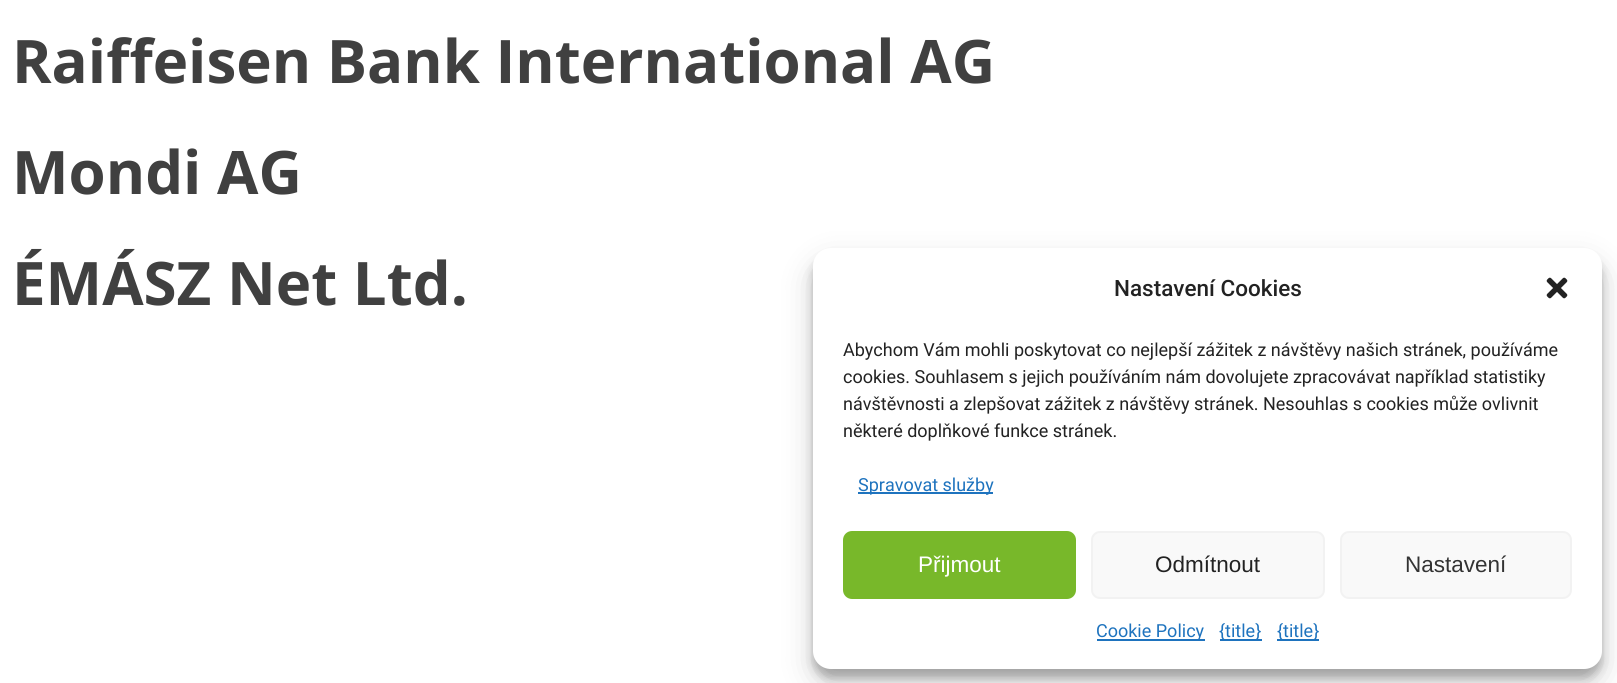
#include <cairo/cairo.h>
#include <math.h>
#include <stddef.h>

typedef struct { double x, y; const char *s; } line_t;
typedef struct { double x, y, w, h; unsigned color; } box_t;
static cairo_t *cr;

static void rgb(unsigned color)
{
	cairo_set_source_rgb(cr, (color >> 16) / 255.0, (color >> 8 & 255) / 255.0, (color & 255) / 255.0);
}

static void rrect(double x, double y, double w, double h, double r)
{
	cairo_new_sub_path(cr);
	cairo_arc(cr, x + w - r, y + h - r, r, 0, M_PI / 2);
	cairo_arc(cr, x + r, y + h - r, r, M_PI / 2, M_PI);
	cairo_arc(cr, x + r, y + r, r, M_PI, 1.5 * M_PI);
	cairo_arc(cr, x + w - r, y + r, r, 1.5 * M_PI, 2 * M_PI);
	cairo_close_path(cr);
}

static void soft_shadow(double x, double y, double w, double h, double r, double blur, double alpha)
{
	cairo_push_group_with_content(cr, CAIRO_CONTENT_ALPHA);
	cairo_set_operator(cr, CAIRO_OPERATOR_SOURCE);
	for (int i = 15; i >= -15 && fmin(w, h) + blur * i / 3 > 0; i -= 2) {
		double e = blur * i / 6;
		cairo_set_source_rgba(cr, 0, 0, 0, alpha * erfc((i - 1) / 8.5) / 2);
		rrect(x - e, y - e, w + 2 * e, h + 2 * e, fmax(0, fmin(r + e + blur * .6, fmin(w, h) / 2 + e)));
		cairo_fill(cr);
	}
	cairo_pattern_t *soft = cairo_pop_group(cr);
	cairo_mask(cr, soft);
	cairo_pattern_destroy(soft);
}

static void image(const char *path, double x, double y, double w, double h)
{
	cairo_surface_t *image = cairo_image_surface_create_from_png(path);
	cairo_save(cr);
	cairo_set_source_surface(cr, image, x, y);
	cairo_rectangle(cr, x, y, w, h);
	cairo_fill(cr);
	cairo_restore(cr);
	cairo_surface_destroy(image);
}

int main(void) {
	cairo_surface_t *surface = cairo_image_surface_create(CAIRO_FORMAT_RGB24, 1617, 683);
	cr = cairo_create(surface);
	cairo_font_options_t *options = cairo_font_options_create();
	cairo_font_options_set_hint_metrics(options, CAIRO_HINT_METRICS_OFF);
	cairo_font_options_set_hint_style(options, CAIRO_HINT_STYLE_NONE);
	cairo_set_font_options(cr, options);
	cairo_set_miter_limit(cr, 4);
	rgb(0xffffff);
	cairo_paint(cr);
	rgb(0x000000);
	soft_shadow(813, 257, 789, 421, 18, 4.5, 0.23);
	soft_shadow(813, 263, 789, 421, 18, 15, 0.19);
	rgb(0xffffff);
	rrect(813, 248, 789, 421, 18);
	cairo_fill(cr);
	image("img/1.png", 1546, 277, 22, 22);
	rgb(0x1e73be);
	cairo_rectangle(cr, 858, 492, 135, 2);
	cairo_fill(cr);
	rgb(0x78b82a);
	rrect(844, 532, 231, 66, 8);
	cairo_fill_preserve(cr);
	cairo_stroke(cr);
	rgb(0xf9f9f9);
	rrect(1092, 532, 232, 66, 8);
	cairo_fill_preserve(cr);
	rgb(0xf2f2f2);
	cairo_stroke(cr);
	rgb(0xf9f9f9);
	rrect(1341, 532, 230, 66, 8);
	cairo_fill_preserve(cr);
	rgb(0xf2f2f2);
	cairo_stroke(cr);
	{
		static const box_t items[] = {
			{1097, 639, 108, 2, 0x1e73be},
			{1220, 639, 42, 2, 0x1e73be},
			{1277, 639, 42, 2, 0x1e73be},
		};
		for (size_t i = 0; i < sizeof items / sizeof *items; i++) {
			rgb(items[i].color);
			cairo_rectangle(cr, items[i].x, items[i].y, items[i].w, items[i].h);
			cairo_fill(cr);
		}
	}
	cairo_select_font_face(cr, "Open Sans", CAIRO_FONT_SLANT_NORMAL, CAIRO_FONT_WEIGHT_BOLD);
	cairo_set_font_size(cr, 60);
	rgb(0x404040);
	{
		static const line_t items[] = {
			{12, 83, "Raiffeisen Bank International AG"},
			{12, 194, "Mondi AG"},
			{12, 305, "ÉMÁSZ Net Ltd."},
		};
		for (size_t i = 0; i < sizeof items / sizeof *items; i++) {
			cairo_move_to(cr, items[i].x, items[i].y);
			cairo_show_text(cr, items[i].s);
		}
	}
	cairo_select_font_face(cr, "Roboto Medium", CAIRO_FONT_SLANT_NORMAL, CAIRO_FONT_WEIGHT_NORMAL);
	cairo_set_font_size(cr, 22.5);
	rgb(0x222222);
	cairo_move_to(cr, 1114, 296);
	cairo_show_text(cr, "Nastavení Cookies");
	cairo_select_font_face(cr, "Roboto", CAIRO_FONT_SLANT_NORMAL, CAIRO_FONT_WEIGHT_NORMAL);
	cairo_set_font_size(cr, 18);
	{
		static const line_t items[] = {
			{843, 356, "Abychom Vám mohli poskytovat co nejlepší zážitek z návštěvy našich stránek, používáme"},
			{843, 383, "cookies. Souhlasem s jejich používáním nám dovolujete zpracovávat například statistiky"},
			{843, 410, "návštěvnosti a zlepšovat zážitek z návštěvy stránek. Nesouhlas s cookies může ovlivnit"},
			{843, 437, "některé doplňkové funkce stránek."},
		};
		for (size_t i = 0; i < sizeof items / sizeof *items; i++) {
			cairo_move_to(cr, items[i].x, items[i].y);
			cairo_show_text(cr, items[i].s);
		}
	}
	rgb(0x1e73be);
	cairo_move_to(cr, 858, 491);
	cairo_show_text(cr, "Spravovat služby");
	cairo_select_font_face(cr, "Liberation Sans", CAIRO_FONT_SLANT_NORMAL, CAIRO_FONT_WEIGHT_NORMAL);
	cairo_set_font_size(cr, 22.5);
	rgb(0xffffff);
	cairo_move_to(cr, 918, 572);
	cairo_show_text(cr, "Přijmout");
	rgb(0x222222);
	cairo_move_to(cr, 1155, 572);
	cairo_show_text(cr, "Odmítnout");
	rgb(0x333333);
	cairo_move_to(cr, 1405, 572);
	cairo_show_text(cr, "Nastavení");
	cairo_select_font_face(cr, "Roboto", CAIRO_FONT_SLANT_NORMAL, CAIRO_FONT_WEIGHT_NORMAL);
	cairo_set_font_size(cr, 18);
	rgb(0x1e73be);
	{
		static const line_t items[] = {
			{1096, 637, "Cookie Policy"},
			{1219, 637, "{title}"},
			{1277, 637, "{title}"},
		};
		for (size_t i = 0; i < sizeof items / sizeof *items; i++) {
			cairo_move_to(cr, items[i].x, items[i].y);
			cairo_show_text(cr, items[i].s);
		}
	}
	cairo_surface_write_to_png(surface, "page.png");
	cairo_font_options_destroy(options);
	cairo_destroy(cr);
	cairo_surface_destroy(surface);
	return 0;
}
